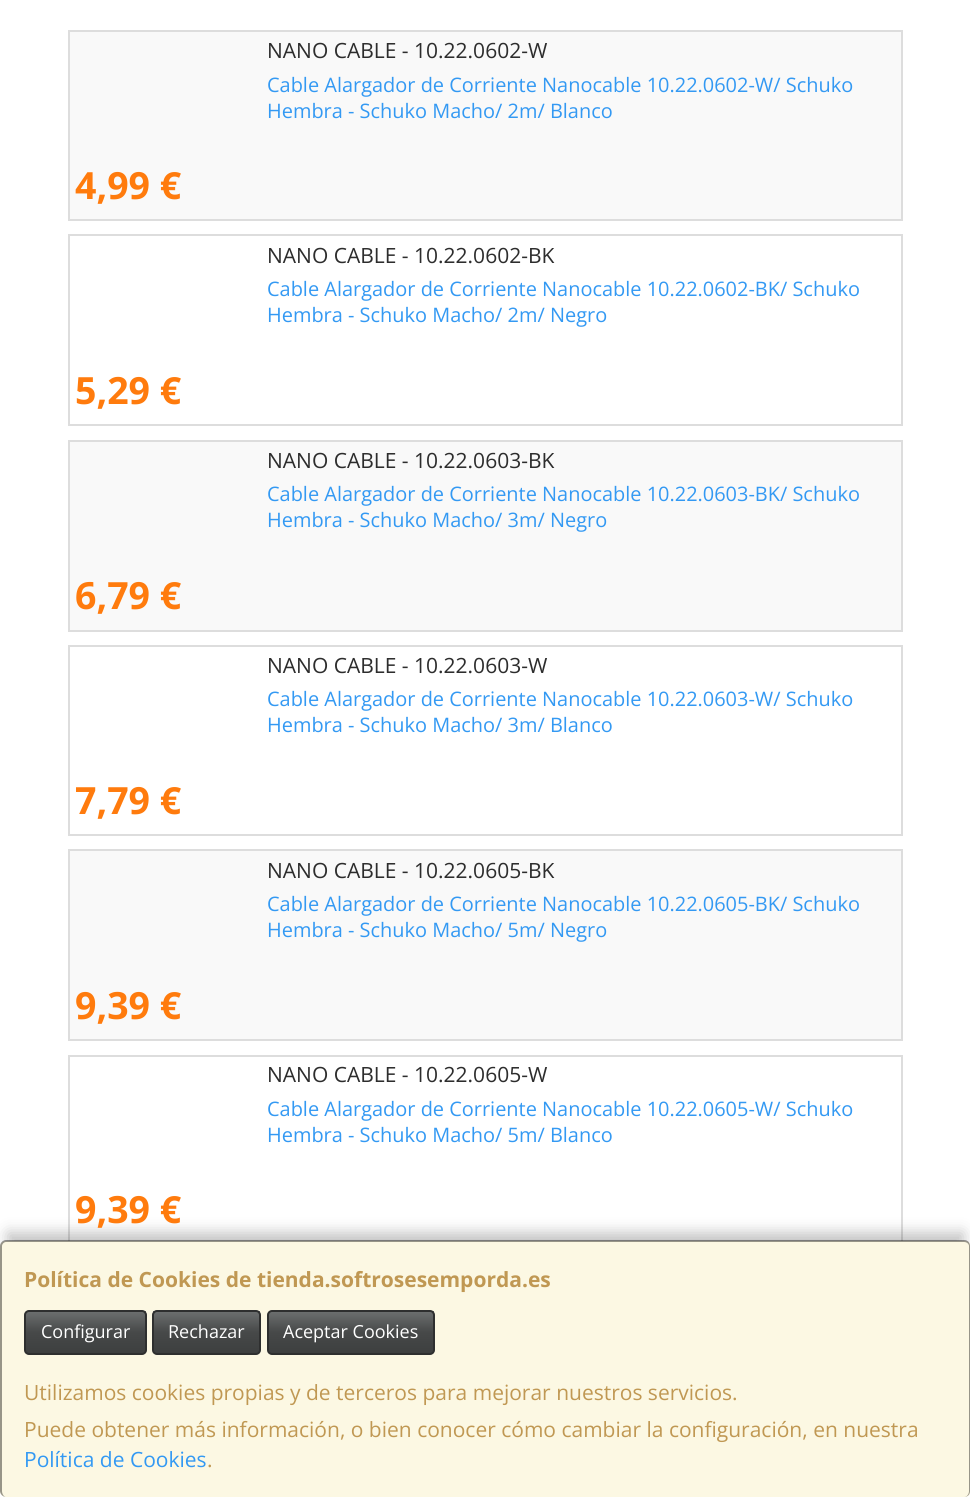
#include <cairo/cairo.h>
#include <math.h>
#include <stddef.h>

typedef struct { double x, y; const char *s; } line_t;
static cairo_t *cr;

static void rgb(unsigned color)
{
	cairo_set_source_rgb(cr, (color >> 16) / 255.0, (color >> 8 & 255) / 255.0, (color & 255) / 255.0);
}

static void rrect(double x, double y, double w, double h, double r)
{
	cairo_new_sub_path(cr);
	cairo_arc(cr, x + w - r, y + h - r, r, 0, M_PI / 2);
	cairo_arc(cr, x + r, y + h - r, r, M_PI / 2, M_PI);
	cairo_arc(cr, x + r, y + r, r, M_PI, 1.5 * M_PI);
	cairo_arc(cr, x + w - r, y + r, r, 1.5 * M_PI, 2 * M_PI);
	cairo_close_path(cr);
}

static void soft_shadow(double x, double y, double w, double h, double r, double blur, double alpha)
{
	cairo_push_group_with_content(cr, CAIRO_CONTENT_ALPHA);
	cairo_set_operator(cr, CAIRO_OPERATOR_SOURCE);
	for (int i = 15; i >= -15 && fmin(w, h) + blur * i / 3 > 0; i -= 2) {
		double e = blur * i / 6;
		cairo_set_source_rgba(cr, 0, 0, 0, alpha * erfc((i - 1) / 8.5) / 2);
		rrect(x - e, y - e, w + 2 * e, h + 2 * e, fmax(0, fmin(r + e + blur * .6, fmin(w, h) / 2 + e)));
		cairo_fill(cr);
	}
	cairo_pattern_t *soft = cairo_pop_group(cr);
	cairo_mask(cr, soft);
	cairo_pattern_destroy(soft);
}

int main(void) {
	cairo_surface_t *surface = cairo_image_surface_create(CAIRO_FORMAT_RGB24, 970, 1497);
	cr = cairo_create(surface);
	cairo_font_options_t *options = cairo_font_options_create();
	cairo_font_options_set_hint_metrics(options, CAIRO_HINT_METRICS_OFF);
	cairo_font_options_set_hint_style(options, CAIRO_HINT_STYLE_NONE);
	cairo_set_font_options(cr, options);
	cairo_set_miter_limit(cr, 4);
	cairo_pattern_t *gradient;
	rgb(0xffffff);
	cairo_paint(cr);
	rgb(0xf9f9f9);
	cairo_rectangle(cr, 69, 31, 833, 189);
	cairo_fill_preserve(cr);
	rgb(0xdddddd);
	cairo_stroke(cr);
	cairo_rectangle(cr, 69, 235, 833, 190);
	cairo_stroke(cr);
	rgb(0xf9f9f9);
	cairo_rectangle(cr, 69, 441, 833, 190);
	cairo_fill_preserve(cr);
	rgb(0xdddddd);
	cairo_stroke(cr);
	cairo_rectangle(cr, 69, 646, 833, 189);
	cairo_stroke(cr);
	rgb(0xf9f9f9);
	cairo_rectangle(cr, 69, 850, 833, 190);
	cairo_fill_preserve(cr);
	rgb(0xdddddd);
	cairo_stroke(cr);
	cairo_rectangle(cr, 69, 1056, 833, 188);
	cairo_stroke(cr);
	rgb(0x000000);
	soft_shadow(8, 1233, 955, 242, 0, 7.5, 0.25);
	rgb(0xfcf8e3);
	rrect(0, 1241, 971, 256, 6);
	cairo_fill(cr);
	cairo_set_source_rgba(cr, 0, 0, 0, 0.4);
	cairo_set_fill_rule(cr, CAIRO_FILL_RULE_EVEN_ODD);
	cairo_new_path(cr);
	cairo_move_to(cr, 6, 1240);
	cairo_line_to(cr, 964, 1240);
	cairo_curve_to(cr, 968, 1240, 970, 1243, 970, 1246);
	cairo_line_to(cr, 970, 1491);
	cairo_curve_to(cr, 970, 1494, 968, 1497, 964, 1497);
	cairo_line_to(cr, 6, 1497);
	cairo_curve_to(cr, 3, 1497, 0, 1494, 0, 1491);
	cairo_line_to(cr, 0, 1246);
	cairo_curve_to(cr, 0, 1243, 3, 1240, 6, 1240);
	cairo_close_path(cr);
	cairo_move_to(cr, 6, 1242);
	cairo_line_to(cr, 964, 1242);
	cairo_curve_to(cr, 967, 1242, 969, 1244, 969, 1246);
	cairo_line_to(cr, 969, 1491);
	cairo_curve_to(cr, 969, 1494, 967, 1497, 964, 1497);
	cairo_line_to(cr, 6, 1497);
	cairo_curve_to(cr, 4, 1497, 2, 1494, 2, 1491);
	cairo_line_to(cr, 2, 1246);
	cairo_curve_to(cr, 2, 1244, 4, 1242, 6, 1242);
	cairo_close_path(cr);
	cairo_fill(cr);
	gradient = cairo_pattern_create_linear(86, 1311, 86, 1353);
	cairo_pattern_add_color_stop_rgba(gradient, 0, 0.427, 0.439, 0.439, 1);
	cairo_pattern_add_color_stop_rgba(gradient, 0.5, 0.278, 0.286, 0.286, 1);
	cairo_pattern_add_color_stop_rgba(gradient, 1, 0.239, 0.247, 0.247, 1);
	cairo_set_source(cr, gradient);
	cairo_pattern_destroy(gradient);
	cairo_rectangle(cr, 26, 1311, 120, 42);
	cairo_fill(cr);
	rrect(25, 1311, 121, 43, 4);
	rgb(0x2e2f2f);
	cairo_stroke(cr);
	gradient = cairo_pattern_create_linear(206, 1311, 206, 1353);
	cairo_pattern_add_color_stop_rgba(gradient, 0, 0.427, 0.439, 0.439, 1);
	cairo_pattern_add_color_stop_rgba(gradient, 0.5, 0.278, 0.286, 0.286, 1);
	cairo_pattern_add_color_stop_rgba(gradient, 1, 0.239, 0.247, 0.247, 1);
	cairo_set_source(cr, gradient);
	cairo_pattern_destroy(gradient);
	cairo_rectangle(cr, 153, 1311, 107, 42);
	cairo_fill(cr);
	rrect(153, 1311, 107, 43, 4);
	rgb(0x2e2f2f);
	cairo_stroke(cr);
	gradient = cairo_pattern_create_linear(351, 1311, 351, 1353);
	cairo_pattern_add_color_stop_rgba(gradient, 0, 0.427, 0.439, 0.439, 1);
	cairo_pattern_add_color_stop_rgba(gradient, 0.5, 0.278, 0.286, 0.286, 1);
	cairo_pattern_add_color_stop_rgba(gradient, 1, 0.239, 0.247, 0.247, 1);
	cairo_set_source(cr, gradient);
	cairo_pattern_destroy(gradient);
	cairo_rectangle(cr, 269, 1311, 165, 42);
	cairo_fill(cr);
	rrect(268, 1311, 166, 43, 4);
	rgb(0x2e2f2f);
	cairo_stroke(cr);
	cairo_select_font_face(cr, "Open Sans", CAIRO_FONT_SLANT_NORMAL, CAIRO_FONT_WEIGHT_NORMAL);
	cairo_set_font_size(cr, 21);
	rgb(0x2d2d2d);
	cairo_move_to(cr, 267, 58);
	cairo_show_text(cr, "NANO CABLE - 10.22.0602-W");
	cairo_set_font_size(cr, 19.95);
	rgb(0x3399f3);
	cairo_move_to(cr, 267, 92);
	cairo_show_text(cr, "Cable Alargador de Corriente Nanocable 10.22.0602-W/ Schuko");
	cairo_move_to(cr, 267, 118);
	cairo_show_text(cr, "Hembra - Schuko Macho/ 2m/ Blanco");
	cairo_select_font_face(cr, "Open Sans", CAIRO_FONT_SLANT_NORMAL, CAIRO_FONT_WEIGHT_BOLD);
	cairo_set_font_size(cr, 37.5);
	rgb(0xff7b0d);
	cairo_move_to(cr, 75, 199);
	cairo_show_text(cr, "4,99 €");
	cairo_select_font_face(cr, "Open Sans", CAIRO_FONT_SLANT_NORMAL, CAIRO_FONT_WEIGHT_NORMAL);
	cairo_set_font_size(cr, 21);
	rgb(0x2d2d2d);
	cairo_move_to(cr, 267, 263);
	cairo_show_text(cr, "NANO CABLE - 10.22.0602-BK");
	cairo_set_font_size(cr, 19.95);
	rgb(0x3399f3);
	cairo_move_to(cr, 267, 296);
	cairo_show_text(cr, "Cable Alargador de Corriente Nanocable 10.22.0602-BK/ Schuko");
	cairo_move_to(cr, 267, 322);
	cairo_show_text(cr, "Hembra - Schuko Macho/ 2m/ Negro");
	cairo_select_font_face(cr, "Open Sans", CAIRO_FONT_SLANT_NORMAL, CAIRO_FONT_WEIGHT_BOLD);
	cairo_set_font_size(cr, 37.5);
	rgb(0xff7b0d);
	cairo_move_to(cr, 75, 404);
	cairo_show_text(cr, "5,29 €");
	cairo_select_font_face(cr, "Open Sans", CAIRO_FONT_SLANT_NORMAL, CAIRO_FONT_WEIGHT_NORMAL);
	cairo_set_font_size(cr, 21);
	rgb(0x2d2d2d);
	cairo_move_to(cr, 267, 468);
	cairo_show_text(cr, "NANO CABLE - 10.22.0603-BK");
	cairo_set_font_size(cr, 19.95);
	rgb(0x3399f3);
	cairo_move_to(cr, 267, 501);
	cairo_show_text(cr, "Cable Alargador de Corriente Nanocable 10.22.0603-BK/ Schuko");
	cairo_move_to(cr, 267, 527);
	cairo_show_text(cr, "Hembra - Schuko Macho/ 3m/ Negro");
	cairo_select_font_face(cr, "Open Sans", CAIRO_FONT_SLANT_NORMAL, CAIRO_FONT_WEIGHT_BOLD);
	cairo_set_font_size(cr, 37.5);
	rgb(0xff7b0d);
	cairo_move_to(cr, 75, 609);
	cairo_show_text(cr, "6,79 €");
	cairo_select_font_face(cr, "Open Sans", CAIRO_FONT_SLANT_NORMAL, CAIRO_FONT_WEIGHT_NORMAL);
	cairo_set_font_size(cr, 21);
	rgb(0x2d2d2d);
	cairo_move_to(cr, 267, 673);
	cairo_show_text(cr, "NANO CABLE - 10.22.0603-W");
	cairo_set_font_size(cr, 19.95);
	rgb(0x3399f3);
	cairo_move_to(cr, 267, 706);
	cairo_show_text(cr, "Cable Alargador de Corriente Nanocable 10.22.0603-W/ Schuko");
	cairo_move_to(cr, 267, 732);
	cairo_show_text(cr, "Hembra - Schuko Macho/ 3m/ Blanco");
	cairo_select_font_face(cr, "Open Sans", CAIRO_FONT_SLANT_NORMAL, CAIRO_FONT_WEIGHT_BOLD);
	cairo_set_font_size(cr, 37.5);
	rgb(0xff7b0d);
	cairo_move_to(cr, 75, 814);
	cairo_show_text(cr, "7,79 €");
	cairo_select_font_face(cr, "Open Sans", CAIRO_FONT_SLANT_NORMAL, CAIRO_FONT_WEIGHT_NORMAL);
	cairo_set_font_size(cr, 21);
	rgb(0x2d2d2d);
	cairo_move_to(cr, 267, 878);
	cairo_show_text(cr, "NANO CABLE - 10.22.0605-BK");
	cairo_set_font_size(cr, 19.95);
	rgb(0x3399f3);
	cairo_move_to(cr, 267, 911);
	cairo_show_text(cr, "Cable Alargador de Corriente Nanocable 10.22.0605-BK/ Schuko");
	cairo_move_to(cr, 267, 937);
	cairo_show_text(cr, "Hembra - Schuko Macho/ 5m/ Negro");
	cairo_select_font_face(cr, "Open Sans", CAIRO_FONT_SLANT_NORMAL, CAIRO_FONT_WEIGHT_BOLD);
	cairo_set_font_size(cr, 37.5);
	rgb(0xff7b0d);
	cairo_move_to(cr, 75, 1019);
	cairo_show_text(cr, "9,39 €");
	cairo_select_font_face(cr, "Open Sans", CAIRO_FONT_SLANT_NORMAL, CAIRO_FONT_WEIGHT_NORMAL);
	cairo_set_font_size(cr, 21);
	rgb(0x2d2d2d);
	cairo_move_to(cr, 267, 1082);
	cairo_show_text(cr, "NANO CABLE - 10.22.0605-W");
	cairo_set_font_size(cr, 19.95);
	rgb(0x3399f3);
	cairo_move_to(cr, 267, 1116);
	cairo_show_text(cr, "Cable Alargador de Corriente Nanocable 10.22.0605-W/ Schuko");
	cairo_move_to(cr, 267, 1142);
	cairo_show_text(cr, "Hembra - Schuko Macho/ 5m/ Blanco");
	cairo_select_font_face(cr, "Open Sans", CAIRO_FONT_SLANT_NORMAL, CAIRO_FONT_WEIGHT_BOLD);
	cairo_set_font_size(cr, 37.5);
	rgb(0xff7b0d);
	cairo_move_to(cr, 75, 1223);
	cairo_show_text(cr, "9,39 €");
	cairo_set_font_size(cr, 21);
	rgb(0xc09853);
	cairo_move_to(cr, 24, 1287);
	cairo_show_text(cr, "Política de Cookies de tienda.softrosesemporda.es");
	cairo_select_font_face(cr, "Open Sans", CAIRO_FONT_SLANT_NORMAL, CAIRO_FONT_WEIGHT_NORMAL);
	cairo_set_font_size(cr, 18);
	rgb(0xffffff);
	{
		static const line_t items[] = {
			{41, 1338, "Configurar"},
			{168, 1338, "Rechazar"},
			{283, 1338, "Aceptar Cookies"},
		};
		for (size_t i = 0; i < sizeof items / sizeof *items; i++) {
			cairo_move_to(cr, items[i].x, items[i].y);
			cairo_show_text(cr, items[i].s);
		}
	}
	cairo_set_font_size(cr, 21);
	rgb(0xc09853);
	cairo_move_to(cr, 24, 1400);
	cairo_show_text(cr, "Utilizamos cookies propias y de terceros para mejorar nuestros servicios.");
	cairo_move_to(cr, 24, 1437);
	cairo_show_text(cr, "Puede obtener más información, o bien conocer cómo cambiar la configuración, en nuestra");
	rgb(0x3399f3);
	cairo_move_to(cr, 24, 1467);
	cairo_show_text(cr, "Política de Cookies");
	rgb(0xc09853);
	cairo_move_to(cr, 207, 1467);
	cairo_show_text(cr, ".");
	cairo_surface_write_to_png(surface, "page.png");
	cairo_font_options_destroy(options);
	cairo_destroy(cr);
	cairo_surface_destroy(surface);
	return 0;
}
